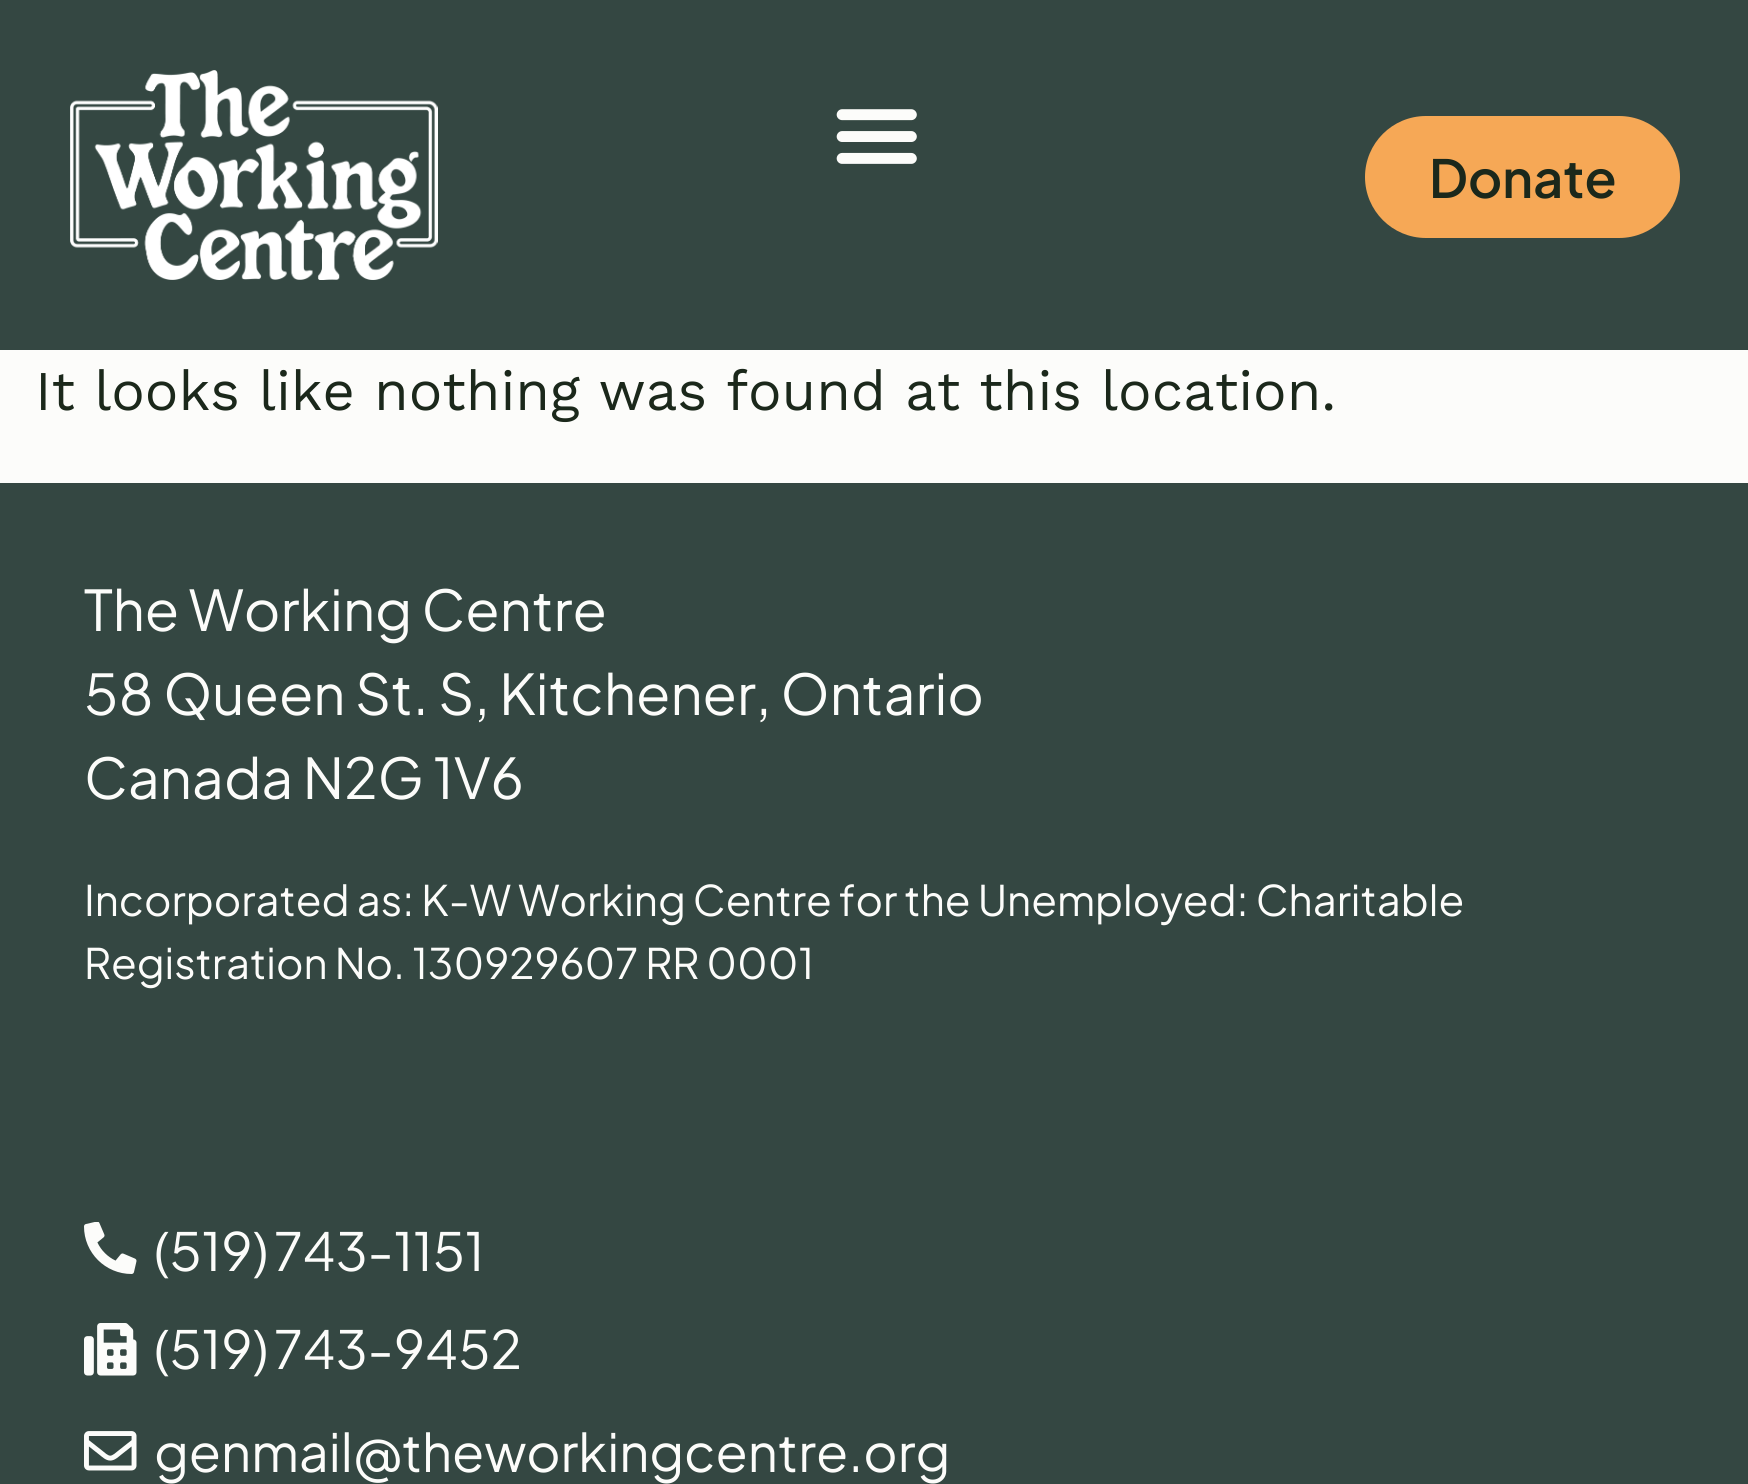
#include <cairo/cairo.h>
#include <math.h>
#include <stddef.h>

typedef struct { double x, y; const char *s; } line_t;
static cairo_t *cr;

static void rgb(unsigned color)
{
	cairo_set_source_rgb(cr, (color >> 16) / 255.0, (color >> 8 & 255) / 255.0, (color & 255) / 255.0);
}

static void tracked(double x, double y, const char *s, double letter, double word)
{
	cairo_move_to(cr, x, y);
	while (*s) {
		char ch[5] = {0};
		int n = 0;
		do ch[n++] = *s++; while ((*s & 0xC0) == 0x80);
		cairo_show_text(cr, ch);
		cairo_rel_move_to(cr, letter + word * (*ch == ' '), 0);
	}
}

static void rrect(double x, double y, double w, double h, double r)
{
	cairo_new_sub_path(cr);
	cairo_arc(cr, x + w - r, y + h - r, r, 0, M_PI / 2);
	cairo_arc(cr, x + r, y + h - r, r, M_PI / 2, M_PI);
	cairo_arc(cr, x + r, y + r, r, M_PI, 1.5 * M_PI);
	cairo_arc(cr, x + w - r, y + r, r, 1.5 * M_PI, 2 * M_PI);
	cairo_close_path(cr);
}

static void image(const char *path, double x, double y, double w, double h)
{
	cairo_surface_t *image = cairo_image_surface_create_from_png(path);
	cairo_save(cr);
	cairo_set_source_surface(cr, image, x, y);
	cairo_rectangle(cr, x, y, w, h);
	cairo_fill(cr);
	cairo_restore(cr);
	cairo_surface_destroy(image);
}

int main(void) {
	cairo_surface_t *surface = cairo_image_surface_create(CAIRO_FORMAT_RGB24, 1748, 1484);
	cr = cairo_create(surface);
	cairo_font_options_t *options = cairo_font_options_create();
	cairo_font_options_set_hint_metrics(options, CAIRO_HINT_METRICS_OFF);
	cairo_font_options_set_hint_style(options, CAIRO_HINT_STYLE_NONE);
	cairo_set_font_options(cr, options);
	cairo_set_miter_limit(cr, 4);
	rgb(0xfcfcfa);
	cairo_paint(cr);
	rgb(0x344742);
	cairo_rectangle(cr, 0, 0, 1748, 350);
	cairo_fill(cr);
	image("img/1.png", 70, 70, 368, 210);
	image("img/2.png", 836, 109, 81, 55);
	rgb(0xf6a856);
	rrect(1365, 116, 315, 122, 61);
	cairo_fill(cr);
	rgb(0x344742);
	cairo_rectangle(cr, 0, 483, 1748, 1001);
	cairo_fill(cr);
	image("img/3.png", 84, 1222, 53, 52);
	image("img/4.png", 84, 1323, 53, 53);
	image("img/5.png", 84, 1431, 53, 40);
	cairo_select_font_face(cr, "Plus Jakarta Sans SemiBold", CAIRO_FONT_SLANT_NORMAL, CAIRO_FONT_WEIGHT_NORMAL);
	cairo_set_font_size(cr, 52.5);
	rgb(0x1b281b);
	cairo_move_to(cr, 1429, 198);
	cairo_show_text(cr, "Donate");
	cairo_select_font_face(cr, "Work Sans", CAIRO_FONT_SLANT_NORMAL, CAIRO_FONT_WEIGHT_NORMAL);
	cairo_set_font_size(cr, 56);
	cairo_move_to(cr, 35, 410);
	cairo_show_text(cr, "It looks like nothing was found at this location.");
	cairo_select_font_face(cr, "Plus Jakarta Sans", CAIRO_FONT_SLANT_NORMAL, CAIRO_FONT_WEIGHT_NORMAL);
	rgb(0xfcfcfa);
	{
		static const line_t items[] = {
			{84, 631, "The Working Centre"},
			{84, 715, "58 Queen St. S, Kitchener, Ontario"},
			{84, 799, "Canada N2G 1V6"},
		};
		for (size_t i = 0; i < sizeof items / sizeof *items; i++) {
			cairo_move_to(cr, items[i].x, items[i].y);
			cairo_show_text(cr, items[i].s);
		}
	}
	cairo_set_font_size(cr, 42);
	cairo_move_to(cr, 84, 916);
	cairo_show_text(cr, "Incorporated as: K-W Working Centre for the Unemployed: Charitable");
	cairo_move_to(cr, 84, 979);
	cairo_show_text(cr, "Registration No. 130929607 RR 0001");
	cairo_set_font_size(cr, 52.5);
	tracked(154, 1271, "(519) 743-1151", 0, -3);
	tracked(154, 1369, "(519) 743-9452", 0, -3);
	cairo_move_to(cr, 154, 1472);
	cairo_show_text(cr, "genmail@theworkingcentre.org");
	cairo_surface_write_to_png(surface, "page.png");
	cairo_font_options_destroy(options);
	cairo_destroy(cr);
	cairo_surface_destroy(surface);
	return 0;
}
